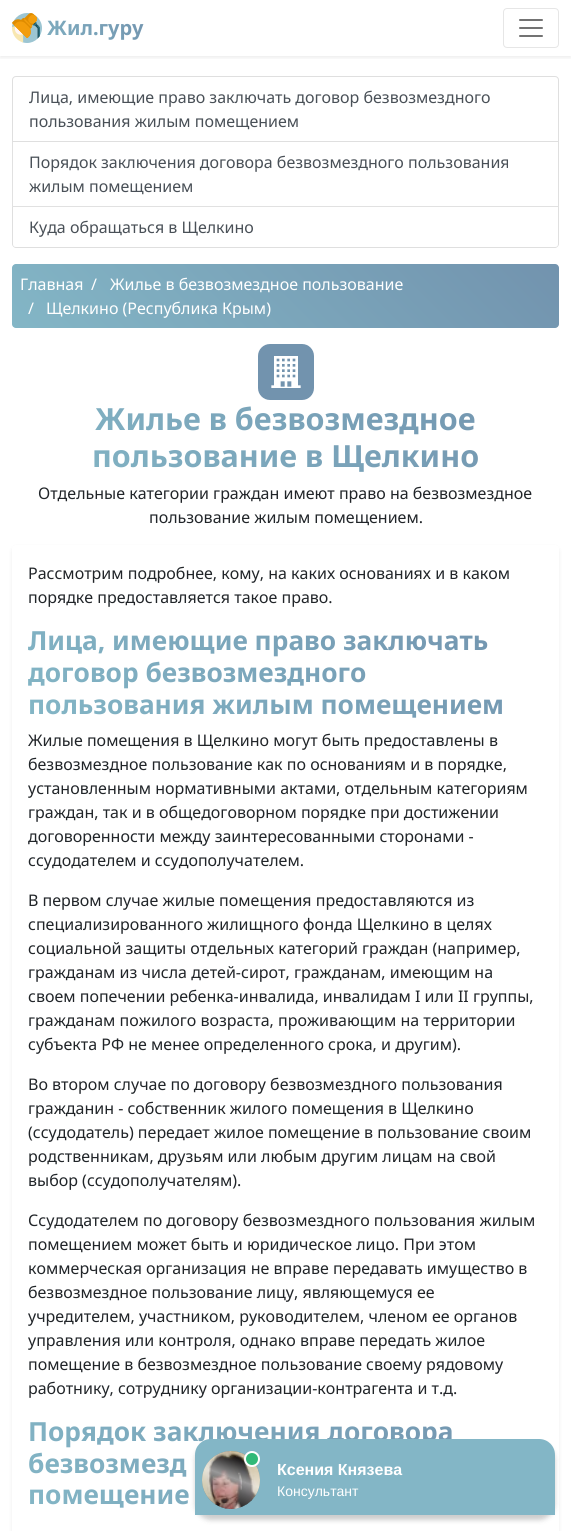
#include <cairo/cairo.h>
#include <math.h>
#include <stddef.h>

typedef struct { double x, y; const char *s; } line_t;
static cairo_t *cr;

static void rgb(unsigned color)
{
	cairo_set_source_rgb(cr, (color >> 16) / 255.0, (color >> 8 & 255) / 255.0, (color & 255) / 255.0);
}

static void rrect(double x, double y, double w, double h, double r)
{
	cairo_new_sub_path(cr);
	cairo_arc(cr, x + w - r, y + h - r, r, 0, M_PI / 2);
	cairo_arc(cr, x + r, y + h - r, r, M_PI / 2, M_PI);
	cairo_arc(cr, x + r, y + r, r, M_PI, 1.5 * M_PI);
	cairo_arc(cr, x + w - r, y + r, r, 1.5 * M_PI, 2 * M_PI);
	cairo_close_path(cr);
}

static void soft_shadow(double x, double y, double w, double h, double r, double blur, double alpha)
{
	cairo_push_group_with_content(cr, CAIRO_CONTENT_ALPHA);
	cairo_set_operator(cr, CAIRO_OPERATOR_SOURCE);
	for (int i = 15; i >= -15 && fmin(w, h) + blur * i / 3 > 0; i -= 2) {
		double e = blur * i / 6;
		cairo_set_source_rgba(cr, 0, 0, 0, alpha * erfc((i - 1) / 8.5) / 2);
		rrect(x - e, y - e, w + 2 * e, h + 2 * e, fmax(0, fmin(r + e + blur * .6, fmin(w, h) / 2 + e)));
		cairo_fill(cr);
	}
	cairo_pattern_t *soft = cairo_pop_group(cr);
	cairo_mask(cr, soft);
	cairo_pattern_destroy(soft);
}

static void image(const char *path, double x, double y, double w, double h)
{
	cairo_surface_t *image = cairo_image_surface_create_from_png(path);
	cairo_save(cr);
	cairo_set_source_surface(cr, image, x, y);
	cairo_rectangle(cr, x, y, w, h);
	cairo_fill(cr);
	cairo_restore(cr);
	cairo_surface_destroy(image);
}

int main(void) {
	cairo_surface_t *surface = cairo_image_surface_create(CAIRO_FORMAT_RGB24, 571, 1531);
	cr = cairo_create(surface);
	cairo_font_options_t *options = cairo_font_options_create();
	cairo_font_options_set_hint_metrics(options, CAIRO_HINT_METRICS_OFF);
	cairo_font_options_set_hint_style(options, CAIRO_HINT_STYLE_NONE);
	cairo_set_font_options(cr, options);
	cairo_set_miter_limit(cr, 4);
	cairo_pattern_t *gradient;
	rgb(0xffffff);
	cairo_paint(cr);
	cairo_save(cr);
	cairo_rectangle(cr, 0, 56, 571, 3);
	cairo_clip(cr);
	rgb(0x000000);
	soft_shadow(0, 2, 571, 56, 0, 2, 0.07);
	cairo_restore(cr);
	image("img/1.png", 12, 13, 30, 30);
	rrect(503.5, 8.5, 55, 39, 3.5);
	rgb(0xe6e6e6);
	cairo_set_line_width(cr, 1);
	cairo_stroke(cr);
	image("img/2.png", 519, 19, 24, 18);
	cairo_new_path(cr);
	cairo_move_to(cr, 16, 76.5);
	cairo_line_to(cr, 555, 76.5);
	cairo_curve_to(cr, 557, 76.5, 558.5, 78, 558.5, 80);
	cairo_line_to(cr, 558.5, 141.5);
	cairo_line_to(cr, 12.5, 141.5);
	cairo_line_to(cr, 12.5, 80);
	cairo_curve_to(cr, 12.5, 78, 14, 76.5, 16, 76.5);
	cairo_close_path(cr);
	rgb(0xdfdfdf);
	cairo_stroke(cr);
	cairo_new_path(cr);
	cairo_move_to(cr, 559, 142);
	cairo_line_to(cr, 559, 207);
	cairo_line_to(cr, 558, 206);
	cairo_line_to(cr, 558, 142);
	cairo_close_path(cr);
	cairo_fill(cr);
	cairo_set_source_rgba(cr, 0, 0, 0, 0.12);
	cairo_new_path(cr);
	cairo_move_to(cr, 559, 207);
	cairo_line_to(cr, 12, 207);
	cairo_line_to(cr, 13, 206);
	cairo_line_to(cr, 558, 206);
	cairo_close_path(cr);
	cairo_fill(cr);
	cairo_new_path(cr);
	cairo_move_to(cr, 12, 207);
	cairo_line_to(cr, 12, 142);
	cairo_line_to(cr, 13, 142);
	cairo_line_to(cr, 13, 206);
	cairo_close_path(cr);
	cairo_fill(cr);
	rgb(0xdfdfdf);
	cairo_set_fill_rule(cr, CAIRO_FILL_RULE_EVEN_ODD);
	cairo_new_path(cr);
	cairo_move_to(cr, 12, 207);
	cairo_line_to(cr, 559, 207);
	cairo_line_to(cr, 559, 244);
	cairo_curve_to(cr, 559, 246, 557, 248, 555, 248);
	cairo_line_to(cr, 16, 248);
	cairo_curve_to(cr, 14, 248, 12, 246, 12, 244);
	cairo_close_path(cr);
	cairo_move_to(cr, 13, 207);
	cairo_line_to(cr, 558, 207);
	cairo_line_to(cr, 558, 244);
	cairo_curve_to(cr, 558, 246, 557, 247, 555, 247);
	cairo_line_to(cr, 16, 247);
	cairo_curve_to(cr, 14, 247, 13, 246, 13, 244);
	cairo_close_path(cr);
	cairo_fill(cr);
	gradient = cairo_pattern_create_linear(133, 449, 438, 143);
	cairo_pattern_add_color_stop_rgba(gradient, 0, 0.514, 0.714, 0.776, 1);
	cairo_pattern_add_color_stop_rgba(gradient, 1, 0.447, 0.576, 0.682, 1);
	cairo_set_source(cr, gradient);
	cairo_pattern_destroy(gradient);
	rrect(12, 264, 547, 64, 4);
	cairo_fill(cr);
	rgb(0x7293ae);
	rrect(258, 344, 56, 56, 12);
	cairo_fill(cr);
	image("img/3.png", 271, 356, 30, 32);
	rgb(0x000000);
	soft_shadow(12, 547, 547, 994, 4, 2, 0.07);
	rgb(0xffffff);
	rrect(12, 545, 547, 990, 4);
	cairo_fill(cr);
	rgb(0x000000);
	soft_shadow(195, 1444, 360, 76, 16, 2.5, 0.2);
	cairo_select_font_face(cr, "Noto Sans", CAIRO_FONT_SLANT_NORMAL, CAIRO_FONT_WEIGHT_BOLD);
	cairo_set_font_size(cr, 20);
	gradient = cairo_pattern_create_linear(35, 71, 121, -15);
	cairo_pattern_add_color_stop_rgba(gradient, 0, 0.514, 0.714, 0.776, 1);
	cairo_pattern_add_color_stop_rgba(gradient, 1, 0.447, 0.576, 0.682, 1);
	cairo_set_source(cr, gradient);
	cairo_pattern_destroy(gradient);
	cairo_move_to(cr, 47, 35);
	cairo_show_text(cr, "Жил.гуру");
	cairo_select_font_face(cr, "Noto Sans", CAIRO_FONT_SLANT_NORMAL, CAIRO_FONT_WEIGHT_NORMAL);
	cairo_set_font_size(cr, 16);
	rgb(0x495057);
	{
		static const line_t items[] = {
			{29, 103, "Лица, имеющие право заключать договор безвозмездного"},
			{29, 127, "пользования жилым помещением"},
			{29, 168, "Порядок заключения договора безвозмездного пользования"},
			{29, 192, "жилым помещением"},
			{29, 233, "Куда обращаться в Щелкино"},
		};
		for (size_t i = 0; i < sizeof items / sizeof *items; i++) {
			cairo_move_to(cr, items[i].x, items[i].y);
			cairo_show_text(cr, items[i].s);
		}
	}
	rgb(0xffffff);
	{
		static const line_t items[] = {
			{20, 290, "Главная"},
			{91, 290, "/"},
			{110, 290, "Жилье в безвозмездное пользование"},
			{28, 314, "/"},
			{46, 314, "Щелкино (Республика Крым)"},
		};
		for (size_t i = 0; i < sizeof items / sizeof *items; i++) {
			cairo_move_to(cr, items[i].x, items[i].y);
			cairo_show_text(cr, items[i].s);
		}
	}
	cairo_select_font_face(cr, "Noto Sans", CAIRO_FONT_SLANT_NORMAL, CAIRO_FONT_WEIGHT_BOLD);
	cairo_set_font_size(cr, 30.5);
	gradient = cairo_pattern_create_linear(130, 592, 441, 282);
	cairo_pattern_add_color_stop_rgba(gradient, 0, 0.514, 0.714, 0.776, 1);
	cairo_pattern_add_color_stop_rgba(gradient, 1, 0.447, 0.576, 0.682, 1);
	cairo_set_source(cr, gradient);
	cairo_pattern_destroy(gradient);
	cairo_move_to(cr, 95, 430);
	cairo_show_text(cr, "Жилье в безвозмездное");
	cairo_move_to(cr, 92, 467);
	cairo_show_text(cr, "пользование в Щелкино");
	cairo_select_font_face(cr, "Noto Sans", CAIRO_FONT_SLANT_NORMAL, CAIRO_FONT_WEIGHT_NORMAL);
	cairo_set_font_size(cr, 16);
	rgb(0x212529);
	{
		static const line_t items[] = {
			{38, 499, "Отдельные категории граждан имеют право на безвозмездное"},
			{149, 523, "пользование жилым помещением."},
			{28, 579, "Рассмотрим подробнее, кому, на каких основаниях и в каком"},
			{28, 603, "порядке предоставляется такое право."},
		};
		for (size_t i = 0; i < sizeof items / sizeof *items; i++) {
			cairo_move_to(cr, items[i].x, items[i].y);
			cairo_show_text(cr, items[i].s);
		}
	}
	cairo_select_font_face(cr, "Noto Sans", CAIRO_FONT_SLANT_NORMAL, CAIRO_FONT_WEIGHT_BOLD);
	cairo_set_font_size(cr, 26.3);
	gradient = cairo_pattern_create_linear(133, 825, 438, 520);
	cairo_pattern_add_color_stop_rgba(gradient, 0, 0.514, 0.714, 0.776, 1);
	cairo_pattern_add_color_stop_rgba(gradient, 1, 0.447, 0.576, 0.682, 1);
	cairo_set_source(cr, gradient);
	cairo_pattern_destroy(gradient);
	{
		static const line_t items[] = {
			{28, 650, "Лица, имеющие право заключать"},
			{28, 682, "договор безвозмездного"},
			{28, 714, "пользования жилым помещением"},
		};
		for (size_t i = 0; i < sizeof items / sizeof *items; i++) {
			cairo_move_to(cr, items[i].x, items[i].y);
			cairo_show_text(cr, items[i].s);
		}
	}
	cairo_select_font_face(cr, "Noto Sans", CAIRO_FONT_SLANT_NORMAL, CAIRO_FONT_WEIGHT_NORMAL);
	cairo_set_font_size(cr, 16);
	rgb(0x212529);
	{
		static const line_t items[] = {
			{28, 746, "Жилые помещения в Щелкино могут быть предоставлены в"},
			{28, 770, "безвозмездное пользование как по основаниям и в порядке,"},
			{28, 794, "установленным нормативными актами, отдельным категориям"},
			{28, 818, "граждан, так и в общедоговорном порядке при достижении"},
			{28, 842, "договоренности между заинтересованными сторонами -"},
			{28, 866, "ссудодателем и ссудополучателем."},
			{28, 906, "В первом случае жилые помещения предоставляются из"},
			{28, 930, "специализированного жилищного фонда Щелкино в целях"},
			{28, 954, "социальной защиты отдельных категорий граждан (например,"},
			{28, 978, "гражданам из числа детей-сирот, гражданам, имеющим на"},
			{28, 1002, "своем попечении ребенка-инвалида, инвалидам I или II группы,"},
			{28, 1026, "гражданам пожилого возраста, проживающим на территории"},
			{28, 1050, "субъекта РФ не менее определенного срока, и другим)."},
			{28, 1090, "Во втором случае по договору безвозмездного пользования"},
			{28, 1114, "гражданин - собственник жилого помещения в Щелкино"},
			{28, 1138, "(ссудодатель) передает жилое помещение в пользование своим"},
			{28, 1162, "родственникам, друзьям или любым другим лицам на свой"},
			{28, 1186, "выбор (ссудополучателям)."},
			{28, 1226, "Ссудодателем по договору безвозмездного пользования жилым"},
			{28, 1250, "помещением может быть и юридическое лицо. При этом"},
			{28, 1274, "коммерческая организация не вправе передавать имущество в"},
			{28, 1298, "безвозмездное пользование лицу, являющемуся ее"},
			{28, 1322, "учредителем, участником, руководителем, членом ее органов"},
			{28, 1346, "управления или контроля, однако вправе передать жилое"},
			{28, 1370, "помещение в безвозмездное пользование своему рядовому"},
			{28, 1394, "работнику, сотруднику организации-контрагента и т.д."},
		};
		for (size_t i = 0; i < sizeof items / sizeof *items; i++) {
			cairo_move_to(cr, items[i].x, items[i].y);
			cairo_show_text(cr, items[i].s);
		}
	}
	cairo_select_font_face(cr, "Noto Sans", CAIRO_FONT_SLANT_NORMAL, CAIRO_FONT_WEIGHT_BOLD);
	cairo_set_font_size(cr, 26.3);
	gradient = cairo_pattern_create_linear(133, 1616, 438, 1311);
	cairo_pattern_add_color_stop_rgba(gradient, 0, 0.514, 0.714, 0.776, 1);
	cairo_pattern_add_color_stop_rgba(gradient, 1, 0.447, 0.576, 0.682, 1);
	cairo_set_source(cr, gradient);
	cairo_pattern_destroy(gradient);
	{
		static const line_t items[] = {
			{28, 1441, "Порядок заключения договора"},
			{28, 1473, "безвозмезд"},
			{28, 1504, "помещение"},
		};
		for (size_t i = 0; i < sizeof items / sizeof *items; i++) {
			cairo_move_to(cr, items[i].x, items[i].y);
			cairo_show_text(cr, items[i].s);
		}
	}
	rgb(0x83b6c6);
	cairo_new_path(cr);
	cairo_move_to(cr, 211, 1439);
	cairo_line_to(cr, 539, 1439);
	cairo_curve_to(cr, 548, 1439, 555, 1446, 555, 1455);
	cairo_line_to(cr, 555, 1515);
	cairo_line_to(cr, 195, 1515);
	cairo_line_to(cr, 195, 1455);
	cairo_curve_to(cr, 195, 1446, 202, 1439, 211, 1439);
	cairo_close_path(cr);
	cairo_fill(cr);
	rgb(0x628995);
	cairo_arc(cr, 231, 1480, 29, 0, 2 * M_PI);
	cairo_fill(cr);
	image("img/4.png", 202, 1451, 58, 58);
	gradient = cairo_pattern_create_linear(241, 1456, 221, 1511);
	cairo_pattern_add_color_stop_rgba(gradient, 0, 1, 1, 1, 0);
	cairo_pattern_add_color_stop_rgba(gradient, 0.4, 1, 1, 1, 0.6);
	cairo_pattern_add_color_stop_rgba(gradient, 0.6, 1, 1, 1, 0.36);
	cairo_pattern_add_color_stop_rgba(gradient, 1, 1, 1, 1, 0);
	cairo_set_source(cr, gradient);
	cairo_pattern_destroy(gradient);
	cairo_set_fill_rule(cr, CAIRO_FILL_RULE_WINDING);
	cairo_new_path(cr);
	cairo_move_to(cr, 228, 1451);
	cairo_line_to(cr, 252, 1460);
	cairo_curve_to(cr, 257, 1465, 260, 1472, 260, 1480);
	cairo_curve_to(cr, 260, 1496, 247, 1509, 231, 1509);
	cairo_curve_to(cr, 215, 1509, 202, 1496, 202, 1480);
	cairo_curve_to(cr, 202, 1465, 213, 1453, 228, 1451);
	cairo_close_path(cr);
	cairo_fill(cr);
	rgb(0x31b978);
	cairo_arc(cr, 252, 1459, 7, 0, 2 * M_PI);
	cairo_fill_preserve(cr);
	rgb(0xffffff);
	cairo_set_line_width(cr, 2);
	cairo_stroke(cr);
	cairo_select_font_face(cr, "Liberation Sans", CAIRO_FONT_SLANT_NORMAL, CAIRO_FONT_WEIGHT_BOLD);
	cairo_set_font_size(cr, 16);
	cairo_move_to(cr, 277, 1475);
	cairo_show_text(cr, "Ксения Князева");
	cairo_select_font_face(cr, "Liberation Sans", CAIRO_FONT_SLANT_NORMAL, CAIRO_FONT_WEIGHT_NORMAL);
	cairo_set_font_size(cr, 14);
	cairo_move_to(cr, 277, 1496);
	cairo_show_text(cr, "Консультант");
	cairo_surface_write_to_png(surface, "page.png");
	cairo_font_options_destroy(options);
	cairo_destroy(cr);
	cairo_surface_destroy(surface);
	return 0;
}
